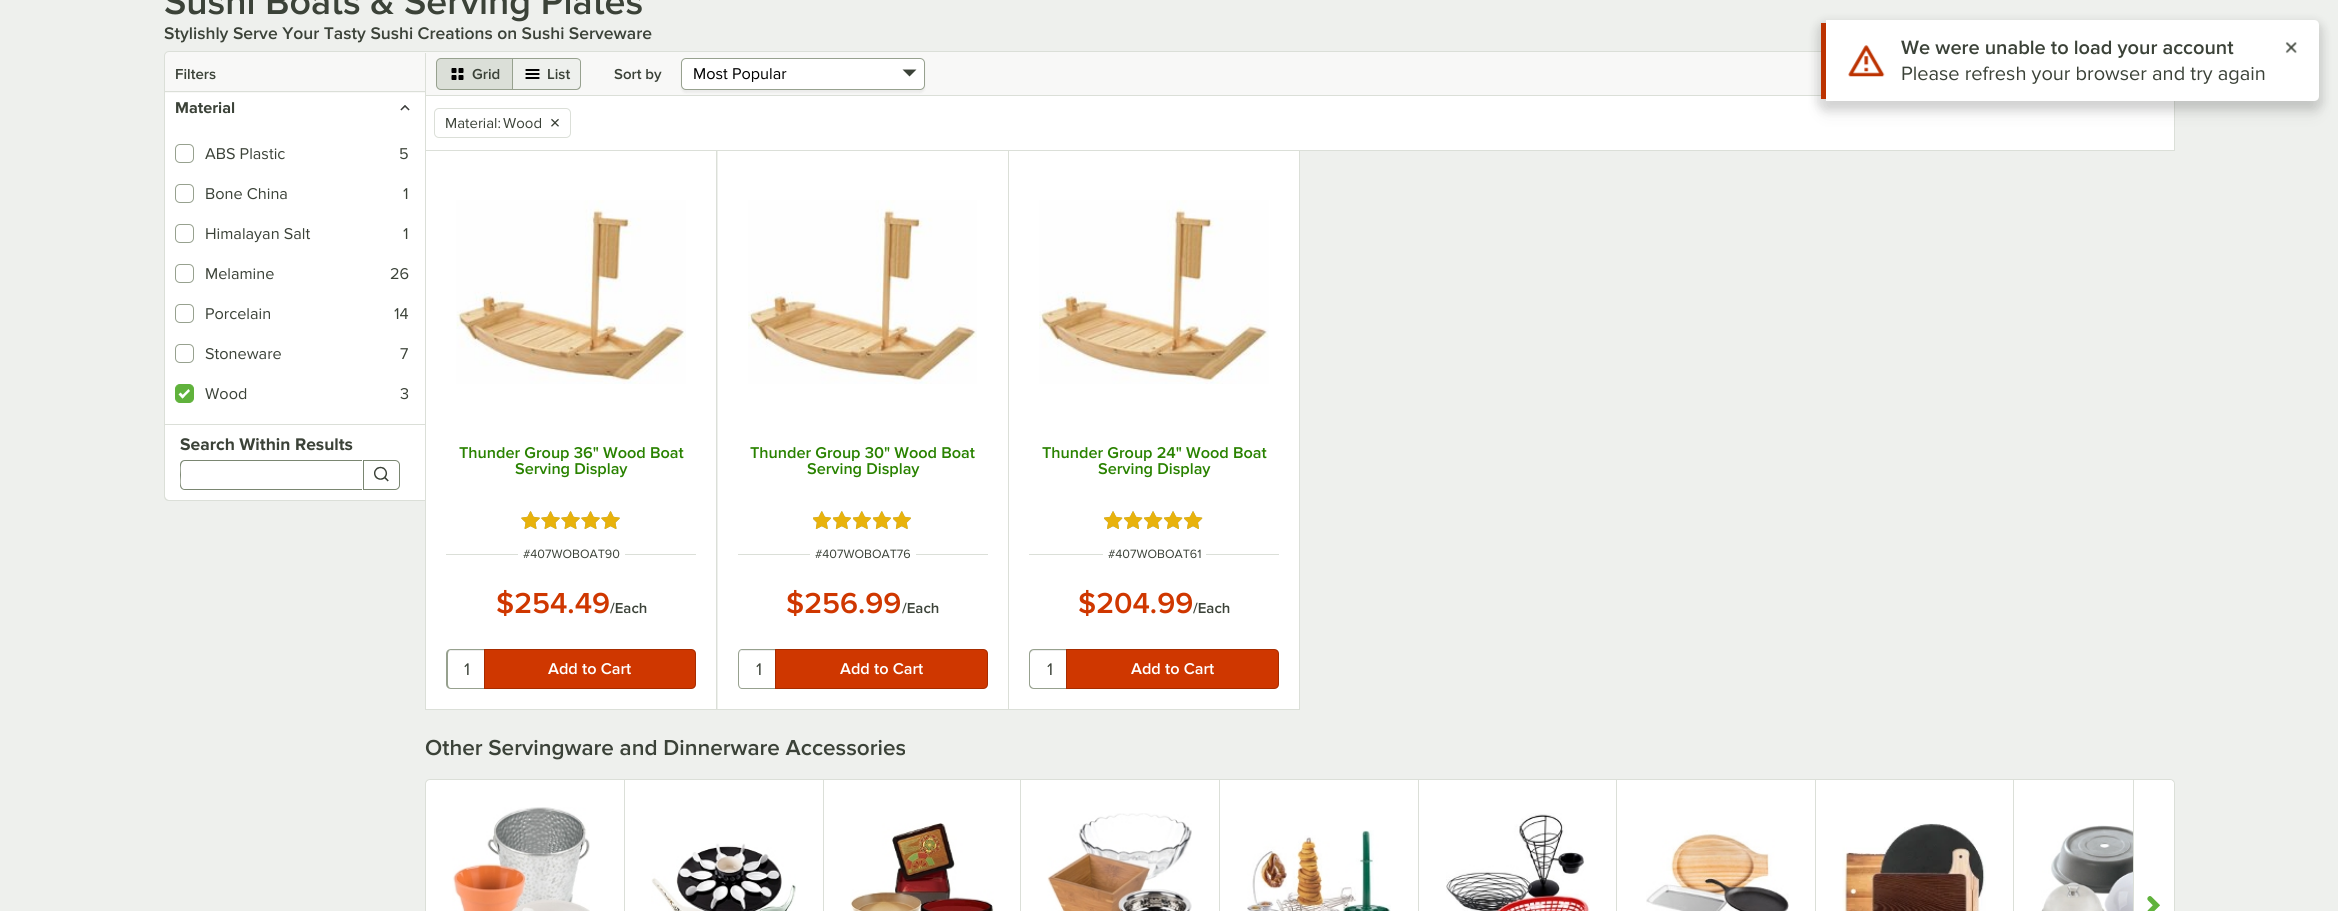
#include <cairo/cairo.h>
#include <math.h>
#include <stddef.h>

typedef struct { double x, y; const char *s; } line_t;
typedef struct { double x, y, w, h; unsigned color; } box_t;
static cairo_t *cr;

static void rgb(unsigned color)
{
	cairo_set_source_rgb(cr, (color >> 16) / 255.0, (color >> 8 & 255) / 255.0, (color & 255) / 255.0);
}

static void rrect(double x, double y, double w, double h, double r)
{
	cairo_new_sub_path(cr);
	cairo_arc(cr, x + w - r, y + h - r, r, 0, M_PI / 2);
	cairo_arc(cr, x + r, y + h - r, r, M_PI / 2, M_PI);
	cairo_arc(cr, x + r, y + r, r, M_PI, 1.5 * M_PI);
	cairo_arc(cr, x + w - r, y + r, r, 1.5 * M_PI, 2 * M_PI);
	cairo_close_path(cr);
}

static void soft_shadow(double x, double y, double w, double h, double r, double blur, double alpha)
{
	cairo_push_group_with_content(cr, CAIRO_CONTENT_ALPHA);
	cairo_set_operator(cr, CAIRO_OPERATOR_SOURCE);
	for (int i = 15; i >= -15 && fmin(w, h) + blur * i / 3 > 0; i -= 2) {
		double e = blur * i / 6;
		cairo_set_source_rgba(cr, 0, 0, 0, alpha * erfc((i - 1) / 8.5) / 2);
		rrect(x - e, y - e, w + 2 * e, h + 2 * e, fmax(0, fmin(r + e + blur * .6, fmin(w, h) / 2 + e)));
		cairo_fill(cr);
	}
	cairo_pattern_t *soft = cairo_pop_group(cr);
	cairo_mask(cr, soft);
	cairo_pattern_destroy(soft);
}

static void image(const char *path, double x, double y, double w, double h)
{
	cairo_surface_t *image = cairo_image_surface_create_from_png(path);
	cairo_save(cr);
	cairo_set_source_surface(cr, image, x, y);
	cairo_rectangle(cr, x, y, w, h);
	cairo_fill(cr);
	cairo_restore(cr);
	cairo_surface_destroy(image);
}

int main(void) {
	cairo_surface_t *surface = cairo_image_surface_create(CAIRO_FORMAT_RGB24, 2338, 911);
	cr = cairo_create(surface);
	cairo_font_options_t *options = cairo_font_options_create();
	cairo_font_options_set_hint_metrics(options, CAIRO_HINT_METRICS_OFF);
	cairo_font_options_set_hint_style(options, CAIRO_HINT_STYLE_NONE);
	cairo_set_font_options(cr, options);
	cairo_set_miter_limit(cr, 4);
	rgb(0xeef0ed);
	cairo_paint(cr);
	rgb(0xffffff);
	cairo_new_path(cr);
	cairo_move_to(cr, 165, 93);
	cairo_line_to(cr, 425, 93);
	cairo_line_to(cr, 425, 500);
	cairo_line_to(cr, 169, 500);
	cairo_curve_to(cr, 167, 500, 165, 498, 165, 496);
	cairo_close_path(cr);
	cairo_fill(cr);
	rgb(0xdbdfd8);
	cairo_set_fill_rule(cr, CAIRO_FILL_RULE_EVEN_ODD);
	cairo_new_path(cr);
	cairo_move_to(cr, 164, 92);
	cairo_line_to(cr, 425, 92);
	cairo_line_to(cr, 425, 501);
	cairo_line_to(cr, 169, 501);
	cairo_curve_to(cr, 166, 501, 164, 499, 164, 496);
	cairo_close_path(cr);
	cairo_move_to(cr, 165, 92);
	cairo_line_to(cr, 425, 92);
	cairo_line_to(cr, 425, 500);
	cairo_line_to(cr, 169, 500);
	cairo_curve_to(cr, 167, 500, 165, 498, 165, 496);
	cairo_close_path(cr);
	cairo_fill(cr);
	{
		static const box_t items[] = {
			{2174, 95, 1, 56, 0xdbdfd8},
			{425, 150, 1750, 1, 0xdbdfd8},
			{425, 95, 1, 56, 0xdbdfd8},
		};
		for (size_t i = 0; i < sizeof items / sizeof *items; i++) {
			rgb(items[i].color);
			cairo_rectangle(cr, items[i].x, items[i].y, items[i].w, items[i].h);
			cairo_fill(cr);
		}
	}
	rgb(0xf8f8f7);
	cairo_new_path(cr);
	cairo_move_to(cr, 169, 51.5);
	cairo_line_to(cr, 2170, 51.5);
	cairo_curve_to(cr, 2172.5, 51.5, 2174.5, 53.5, 2174.5, 56);
	cairo_line_to(cr, 2174.5, 95.5);
	cairo_line_to(cr, 164.5, 95.5);
	cairo_line_to(cr, 164.5, 56);
	cairo_curve_to(cr, 164.5, 53.5, 166.5, 51.5, 169, 51.5);
	cairo_close_path(cr);
	cairo_fill_preserve(cr);
	rgb(0xdbdfd8);
	cairo_set_line_width(cr, 1);
	cairo_stroke(cr);
	cairo_rectangle(cr, 425, 53, 1, 42);
	cairo_fill(cr);
	cairo_new_path(cr);
	cairo_move_to(cr, 441, 58.5);
	cairo_line_to(cr, 512.5, 58.5);
	cairo_line_to(cr, 512.5, 89.5);
	cairo_line_to(cr, 441, 89.5);
	cairo_curve_to(cr, 438.5, 89.5, 436.5, 87.5, 436.5, 85);
	cairo_line_to(cr, 436.5, 63);
	cairo_curve_to(cr, 436.5, 60.5, 438.5, 58.5, 441, 58.5);
	cairo_close_path(cr);
	cairo_fill_preserve(cr);
	rgb(0x97a18f);
	cairo_stroke(cr);
	image("img/1.png", 451, 68, 13, 12);
	rgb(0xeef0ed);
	cairo_new_path(cr);
	cairo_move_to(cr, 513, 59);
	cairo_line_to(cr, 576, 59);
	cairo_curve_to(cr, 578, 59, 580, 61, 580, 63);
	cairo_line_to(cr, 580, 85);
	cairo_curve_to(cr, 580, 87, 578, 89, 576, 89);
	cairo_line_to(cr, 513, 89);
	cairo_close_path(cr);
	cairo_fill(cr);
	rgb(0x97a18f);
	cairo_new_path(cr);
	cairo_move_to(cr, 512, 58);
	cairo_line_to(cr, 576, 58);
	cairo_curve_to(cr, 579, 58, 581, 60, 581, 62);
	cairo_line_to(cr, 581, 85);
	cairo_curve_to(cr, 581, 88, 579, 90, 576, 90);
	cairo_line_to(cr, 512, 90);
	cairo_close_path(cr);
	cairo_move_to(cr, 512, 59);
	cairo_line_to(cr, 576, 59);
	cairo_curve_to(cr, 578, 59, 580, 60, 580, 62);
	cairo_line_to(cr, 580, 85);
	cairo_curve_to(cr, 580, 87, 578, 89, 576, 89);
	cairo_line_to(cr, 512, 89);
	cairo_close_path(cr);
	cairo_fill(cr);
	image("img/2.png", 525, 69, 15, 10);
	rgb(0xffffff);
	cairo_rectangle(cr, 426, 96, 1748, 54);
	cairo_fill(cr);
	rgb(0x000000);
	soft_shadow(681, 60, 244, 33, 5, 1, 0.05);
	rgb(0xffffff);
	rrect(681.5, 58.5, 243, 31, 4.5);
	cairo_fill_preserve(cr);
	rgb(0x97a18f);
	cairo_stroke(cr);
	rgb(0x3b4238);
	cairo_set_fill_rule(cr, CAIRO_FILL_RULE_WINDING);
	cairo_new_path(cr);
	cairo_move_to(cr, 909.5, 76.5);
	cairo_line_to(cr, 902.5, 69.5);
	cairo_line_to(cr, 916.5, 69.5);
	cairo_close_path(cr);
	cairo_fill(cr);
	rgb(0xffffff);
	cairo_rectangle(cr, 165, 93, 260, 3);
	cairo_fill(cr);
	rgb(0xdbdfd8);
	cairo_rectangle(cr, 165, 91, 260, 1);
	cairo_fill(cr);
	image("img/3.png", 400, 105, 10, 6);
	rrect(175.5, 144.5, 18, 18, 4.5);
	rgb(0x97a18f);
	cairo_stroke(cr);
	rrect(175.5, 184.5, 18, 18, 4.5);
	cairo_stroke(cr);
	rrect(175.5, 224.5, 18, 18, 4.5);
	cairo_stroke(cr);
	rrect(175.5, 264.5, 18, 18, 4.5);
	cairo_stroke(cr);
	rrect(175.5, 304.5, 18, 18, 4.5);
	cairo_stroke(cr);
	rrect(175.5, 344.5, 18, 18, 4.5);
	cairo_stroke(cr);
	rgb(0x60b23c);
	rrect(175.5, 384.5, 18, 18, 4.5);
	cairo_fill_preserve(cr);
	cairo_stroke(cr);
	rgb(0xffffff);
	cairo_new_path(cr);
	cairo_move_to(cr, 181, 396.5);
	cairo_line_to(cr, 188.5, 389);
	cairo_line_to(cr, 190, 391);
	cairo_line_to(cr, 182.5, 398.5);
	cairo_close_path(cr);
	cairo_fill(cr);
	cairo_new_path(cr);
	cairo_move_to(cr, 178.5, 394.5);
	cairo_line_to(cr, 180.5, 392.5);
	cairo_line_to(cr, 184.5, 396.5);
	cairo_line_to(cr, 182.5, 398.5);
	cairo_close_path(cr);
	cairo_fill(cr);
	rgb(0xdbdfd8);
	cairo_rectangle(cr, 165, 424, 260, 1);
	cairo_fill(cr);
	rgb(0x7a8671);
	cairo_set_fill_rule(cr, CAIRO_FILL_RULE_EVEN_ODD);
	cairo_new_path(cr);
	cairo_move_to(cr, 185, 460);
	cairo_line_to(cr, 362, 460);
	cairo_line_to(cr, 362, 490);
	cairo_line_to(cr, 185, 490);
	cairo_curve_to(cr, 182, 490, 180, 488, 180, 485);
	cairo_line_to(cr, 180, 465);
	cairo_curve_to(cr, 180, 462, 182, 460, 185, 460);
	cairo_close_path(cr);
	cairo_move_to(cr, 185, 461);
	cairo_line_to(cr, 362, 461);
	cairo_line_to(cr, 362, 489);
	cairo_line_to(cr, 184, 489);
	cairo_curve_to(cr, 179, 488, 181, 478, 181, 475);
	cairo_curve_to(cr, 181, 472, 179, 461, 185, 461);
	cairo_close_path(cr);
	cairo_fill(cr);
	cairo_new_path(cr);
	cairo_move_to(cr, 363.5, 460.5);
	cairo_line_to(cr, 395, 460.5);
	cairo_curve_to(cr, 397.5, 460.5, 399.5, 462.5, 399.5, 465);
	cairo_line_to(cr, 399.5, 485);
	cairo_curve_to(cr, 399.5, 487.5, 397.5, 489.5, 395, 489.5);
	cairo_line_to(cr, 363.5, 489.5);
	cairo_close_path(cr);
	cairo_stroke(cr);
	image("img/4.png", 374, 466, 15, 16);
	rrect(434.5, 108.5, 136, 29, 4.5);
	rgb(0xdbdfd8);
	cairo_stroke(cr);
	image("img/5.png", 551, 118, 8, 9);
	{
		static const box_t items[] = {
			{425, 151, 1, 559, 0xdbdfd8},
			{426, 151, 290, 558, 0xffffff},
			{716, 151, 1, 559, 0xdbdfd8},
			{426, 709, 292, 1, 0xdbdfd8},
		};
		for (size_t i = 0; i < sizeof items / sizeof *items; i++) {
			rgb(items[i].color);
			cairo_rectangle(cr, items[i].x, items[i].y, items[i].w, items[i].h);
			cairo_fill(cr);
		}
	}
	image("img/6.png", 456, 200, 230, 184);
	image("img/7.png", 521, 511, 19, 18);
	image("img/7.png", 541, 511, 19, 18);
	image("img/7.png", 561, 511, 19, 18);
	image("img/7.png", 581, 511, 19, 18);
	image("img/7.png", 601, 511, 19, 18);
	cairo_rectangle(cr, 446, 554, 250, 1);
	cairo_fill(cr);
	rgb(0xffffff);
	cairo_rectangle(cr, 518, 554, 107, 1);
	cairo_fill(cr);
	rgb(0xececec);
	cairo_set_fill_rule(cr, CAIRO_FILL_RULE_WINDING);
	cairo_new_path(cr);
	cairo_move_to(cr, 451, 651);
	cairo_line_to(cr, 488, 651);
	cairo_line_to(cr, 488, 650);
	cairo_line_to(cr, 452, 650);
	cairo_curve_to(cr, 450, 650, 448, 652, 448, 654);
	cairo_line_to(cr, 448, 655);
	cairo_curve_to(cr, 448, 653, 449, 651, 451, 651);
	cairo_close_path(cr);
	cairo_fill(cr);
	rgb(0x97a18f);
	cairo_set_fill_rule(cr, CAIRO_FILL_RULE_EVEN_ODD);
	cairo_new_path(cr);
	cairo_move_to(cr, 451, 649);
	cairo_line_to(cr, 488, 649);
	cairo_line_to(cr, 488, 689);
	cairo_line_to(cr, 451, 689);
	cairo_curve_to(cr, 448, 689, 446, 687, 446, 684);
	cairo_line_to(cr, 446, 654);
	cairo_curve_to(cr, 446, 651, 448, 649, 451, 649);
	cairo_close_path(cr);
	cairo_move_to(cr, 451, 650);
	cairo_line_to(cr, 488, 650);
	cairo_line_to(cr, 488, 688);
	cairo_line_to(cr, 451, 688);
	cairo_curve_to(cr, 449, 688, 448, 686, 448, 684);
	cairo_line_to(cr, 448, 654);
	cairo_curve_to(cr, 448, 652, 449, 650, 451, 650);
	cairo_close_path(cr);
	cairo_fill(cr);
	rgb(0xcf3700);
	cairo_new_path(cr);
	cairo_move_to(cr, 484, 649);
	cairo_line_to(cr, 691, 649);
	cairo_curve_to(cr, 694, 649, 696, 651, 696, 654);
	cairo_line_to(cr, 696, 684);
	cairo_curve_to(cr, 696, 687, 694, 689, 691, 689);
	cairo_line_to(cr, 484, 689);
	cairo_close_path(cr);
	cairo_fill(cr);
	cairo_new_path(cr);
	cairo_move_to(cr, 484.5, 649.5);
	cairo_line_to(cr, 691, 649.5);
	cairo_curve_to(cr, 693.5, 649.5, 695.5, 651.5, 695.5, 654);
	cairo_line_to(cr, 695.5, 684);
	cairo_curve_to(cr, 695.5, 686.5, 693.5, 688.5, 691, 688.5);
	cairo_line_to(cr, 484.5, 688.5);
	cairo_close_path(cr);
	cairo_set_source_rgba(cr, 0, 0, 0, 0.2);
	cairo_stroke(cr);
	{
		static const box_t items[] = {
			{718, 151, 290, 558, 0xffffff},
			{1008, 151, 1, 559, 0xdbdfd8},
			{718, 709, 291, 1, 0xdbdfd8},
		};
		for (size_t i = 0; i < sizeof items / sizeof *items; i++) {
			rgb(items[i].color);
			cairo_rectangle(cr, items[i].x, items[i].y, items[i].w, items[i].h);
			cairo_fill(cr);
		}
	}
	image("img/8.png", 748, 200, 229, 184);
	image("img/9.png", 813, 511, 18, 18);
	image("img/9.png", 833, 511, 18, 18);
	image("img/9.png", 853, 511, 18, 18);
	image("img/9.png", 873, 511, 18, 18);
	image("img/9.png", 893, 511, 18, 18);
	cairo_rectangle(cr, 738, 554, 250, 1);
	cairo_fill(cr);
	rgb(0xffffff);
	cairo_rectangle(cr, 810, 554, 106, 1);
	cairo_fill(cr);
	rgb(0xececec);
	cairo_set_fill_rule(cr, CAIRO_FILL_RULE_WINDING);
	cairo_new_path(cr);
	cairo_move_to(cr, 742, 651);
	cairo_line_to(cr, 779, 651);
	cairo_line_to(cr, 779, 650);
	cairo_line_to(cr, 743, 650);
	cairo_curve_to(cr, 741, 650, 739, 652, 739, 654);
	cairo_line_to(cr, 739, 655);
	cairo_curve_to(cr, 739, 653, 740, 651, 742, 651);
	cairo_close_path(cr);
	cairo_fill(cr);
	rgb(0x97a18f);
	cairo_set_fill_rule(cr, CAIRO_FILL_RULE_EVEN_ODD);
	cairo_new_path(cr);
	cairo_move_to(cr, 742, 649);
	cairo_line_to(cr, 779, 649);
	cairo_line_to(cr, 779, 689);
	cairo_line_to(cr, 742, 689);
	cairo_curve_to(cr, 740, 689, 738, 687, 738, 684);
	cairo_line_to(cr, 738, 654);
	cairo_curve_to(cr, 738, 651, 740, 649, 742, 649);
	cairo_close_path(cr);
	cairo_move_to(cr, 742, 650);
	cairo_line_to(cr, 779, 650);
	cairo_line_to(cr, 779, 688);
	cairo_line_to(cr, 742, 688);
	cairo_curve_to(cr, 740, 688, 739, 686, 739, 684);
	cairo_line_to(cr, 739, 654);
	cairo_curve_to(cr, 739, 652, 740, 650, 742, 650);
	cairo_close_path(cr);
	cairo_fill(cr);
	rgb(0xcf3700);
	cairo_new_path(cr);
	cairo_move_to(cr, 775, 649);
	cairo_line_to(cr, 983, 649);
	cairo_curve_to(cr, 986, 649, 988, 651, 988, 654);
	cairo_line_to(cr, 988, 684);
	cairo_curve_to(cr, 988, 687, 986, 689, 983, 689);
	cairo_line_to(cr, 775, 689);
	cairo_close_path(cr);
	cairo_fill(cr);
	cairo_new_path(cr);
	cairo_move_to(cr, 775.5, 649.5);
	cairo_line_to(cr, 983, 649.5);
	cairo_curve_to(cr, 985.5, 649.5, 987.5, 651.5, 987.5, 654);
	cairo_line_to(cr, 987.5, 684);
	cairo_curve_to(cr, 987.5, 686.5, 985.5, 688.5, 983, 688.5);
	cairo_line_to(cr, 775.5, 688.5);
	cairo_close_path(cr);
	cairo_set_source_rgba(cr, 0, 0, 0, 0.2);
	cairo_stroke(cr);
	{
		static const box_t items[] = {
			{1009, 151, 290, 558, 0xffffff},
			{1299, 151, 1, 559, 0xdbdfd8},
			{1009, 709, 291, 1, 0xdbdfd8},
		};
		for (size_t i = 0; i < sizeof items / sizeof *items; i++) {
			rgb(items[i].color);
			cairo_rectangle(cr, items[i].x, items[i].y, items[i].w, items[i].h);
			cairo_fill(cr);
		}
	}
	image("img/10.png", 1039, 200, 230, 184);
	image("img/11.png", 1104, 511, 19, 18);
	image("img/11.png", 1124, 511, 19, 18);
	image("img/11.png", 1144, 511, 19, 18);
	image("img/11.png", 1164, 511, 19, 18);
	image("img/11.png", 1184, 511, 19, 18);
	cairo_rectangle(cr, 1029, 554, 250, 1);
	cairo_fill(cr);
	rgb(0xffffff);
	cairo_rectangle(cr, 1103, 554, 103, 1);
	cairo_fill(cr);
	rgb(0xececec);
	cairo_set_fill_rule(cr, CAIRO_FILL_RULE_WINDING);
	cairo_new_path(cr);
	cairo_move_to(cr, 1034, 651);
	cairo_line_to(cr, 1070, 651);
	cairo_line_to(cr, 1070, 650);
	cairo_line_to(cr, 1034, 650);
	cairo_curve_to(cr, 1032, 650, 1030, 652, 1030, 654);
	cairo_line_to(cr, 1030, 655);
	cairo_curve_to(cr, 1030, 653, 1032, 651, 1034, 651);
	cairo_close_path(cr);
	cairo_fill(cr);
	rgb(0x97a18f);
	cairo_set_fill_rule(cr, CAIRO_FILL_RULE_EVEN_ODD);
	cairo_new_path(cr);
	cairo_move_to(cr, 1034, 649);
	cairo_line_to(cr, 1070, 649);
	cairo_line_to(cr, 1070, 689);
	cairo_line_to(cr, 1034, 689);
	cairo_curve_to(cr, 1031, 689, 1029, 687, 1029, 684);
	cairo_line_to(cr, 1029, 654);
	cairo_curve_to(cr, 1029, 651, 1031, 649, 1034, 649);
	cairo_close_path(cr);
	cairo_move_to(cr, 1034, 650);
	cairo_line_to(cr, 1070, 650);
	cairo_line_to(cr, 1070, 688);
	cairo_line_to(cr, 1034, 688);
	cairo_curve_to(cr, 1032, 688, 1030, 686, 1030, 684);
	cairo_line_to(cr, 1030, 654);
	cairo_curve_to(cr, 1030, 652, 1032, 650, 1034, 650);
	cairo_close_path(cr);
	cairo_fill(cr);
	rgb(0xcf3700);
	cairo_new_path(cr);
	cairo_move_to(cr, 1066, 649);
	cairo_line_to(cr, 1274, 649);
	cairo_curve_to(cr, 1277, 649, 1279, 651, 1279, 654);
	cairo_line_to(cr, 1279, 684);
	cairo_curve_to(cr, 1279, 687, 1277, 689, 1274, 689);
	cairo_line_to(cr, 1066, 689);
	cairo_close_path(cr);
	cairo_fill(cr);
	cairo_new_path(cr);
	cairo_move_to(cr, 1066.5, 649.5);
	cairo_line_to(cr, 1274, 649.5);
	cairo_curve_to(cr, 1276.5, 649.5, 1278.5, 651.5, 1278.5, 654);
	cairo_line_to(cr, 1278.5, 684);
	cairo_curve_to(cr, 1278.5, 686.5, 1276.5, 688.5, 1274, 688.5);
	cairo_line_to(cr, 1066.5, 688.5);
	cairo_close_path(cr);
	cairo_set_source_rgba(cr, 0, 0, 0, 0.2);
	cairo_stroke(cr);
	rgb(0xffffff);
	rrect(425.5, 779.5, 1749, 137, 4.5);
	cairo_fill_preserve(cr);
	rgb(0xdbdfd8);
	cairo_stroke(cr);
	cairo_rectangle(cr, 624, 780, 1, 131);
	cairo_fill(cr);
	image("img/12.png", 452, 807, 138, 104);
	cairo_rectangle(cr, 823, 780, 1, 131);
	cairo_fill(cr);
	image("img/13.png", 651, 843, 145, 68);
	cairo_rectangle(cr, 1020, 780, 1, 131);
	cairo_fill(cr);
	image("img/14.png", 850, 823, 144, 88);
	cairo_rectangle(cr, 1219, 780, 1, 131);
	cairo_fill(cr);
	image("img/15.png", 1047, 813, 145, 98);
	cairo_rectangle(cr, 1418, 780, 1, 131);
	cairo_fill(cr);
	image("img/16.png", 1247, 830, 144, 81);
	cairo_rectangle(cr, 1616, 780, 1, 131);
	cairo_fill(cr);
	image("img/17.png", 1446, 813, 144, 98);
	cairo_rectangle(cr, 1815, 780, 1, 131);
	cairo_fill(cr);
	image("img/18.png", 1646, 830, 143, 81);
	cairo_rectangle(cr, 2013, 780, 1, 131);
	cairo_fill(cr);
	image("img/19.png", 1842, 823, 144, 88);
	image("img/20.png", 2041, 825, 92, 86);
	rgb(0xffffff);
	cairo_new_path(cr);
	cairo_move_to(cr, 2134, 780);
	cairo_line_to(cr, 2169, 780);
	cairo_curve_to(cr, 2172, 780, 2174, 782, 2174, 785);
	cairo_line_to(cr, 2174, 911);
	cairo_curve_to(cr, 2174, 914, 2172, 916, 2169, 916);
	cairo_line_to(cr, 2134, 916);
	cairo_close_path(cr);
	cairo_fill(cr);
	rgb(0xdbdfd8);
	cairo_rectangle(cr, 2133, 780, 1, 131);
	cairo_fill(cr);
	image("img/21.png", 2147, 896, 13, 15);
	rgb(0x000000);
	soft_shadow(1825, 36, 490, 74, 1, 9.5, 0.1);
	soft_shadow(1816, 20, 508, 91, 10, 4, 0.1);
	rgb(0xffffff);
	cairo_set_fill_rule(cr, CAIRO_FILL_RULE_WINDING);
	cairo_new_path(cr);
	cairo_move_to(cr, 1826, 20);
	cairo_line_to(cr, 2314, 20);
	cairo_curve_to(cr, 2317, 20, 2319, 22, 2319, 25);
	cairo_line_to(cr, 2319, 96);
	cairo_curve_to(cr, 2319, 99, 2317, 101, 2314, 101);
	cairo_line_to(cr, 1826, 101);
	cairo_close_path(cr);
	cairo_fill(cr);
	rgb(0xbc3200);
	cairo_rectangle(cr, 1821, 23, 5, 76);
	cairo_fill(cr);
	image("img/22.png", 1848, 45, 37, 32);
	image("img/23.png", 2285, 42, 12, 12);
	cairo_select_font_face(cr, "Proxima Nova SemiBold", CAIRO_FONT_SLANT_NORMAL, CAIRO_FONT_WEIGHT_NORMAL);
	cairo_set_font_size(cr, 37.5);
	rgb(0x3b4238);
	cairo_move_to(cr, 164, 14);
	cairo_show_text(cr, "Sushi Boats & Serving Plates");
	cairo_set_font_size(cr, 17.5);
	cairo_move_to(cr, 164, 39);
	cairo_show_text(cr, "Stylishly Serve Your Tasty Sushi Creations on Sushi Serveware");
	cairo_set_font_size(cr, 15);
	{
		static const line_t items[] = {
			{175, 79, "Filters"},
			{472, 79, "Grid"},
			{547, 79, "List"},
			{614, 79, "Sort by"},
		};
		for (size_t i = 0; i < sizeof items / sizeof *items; i++) {
			cairo_move_to(cr, items[i].x, items[i].y);
			cairo_show_text(cr, items[i].s);
		}
	}
	cairo_select_font_face(cr, "Proxima Nova", CAIRO_FONT_SLANT_NORMAL, CAIRO_FONT_WEIGHT_NORMAL);
	cairo_set_font_size(cr, 16.25);
	rgb(0x000000);
	cairo_move_to(cr, 693, 79);
	cairo_show_text(cr, "Most Popular");
	cairo_select_font_face(cr, "Proxima Nova", CAIRO_FONT_SLANT_NORMAL, CAIRO_FONT_WEIGHT_BOLD);
	rgb(0x3b4238);
	cairo_move_to(cr, 175, 113);
	cairo_show_text(cr, "Material");
	cairo_select_font_face(cr, "Proxima Nova", CAIRO_FONT_SLANT_NORMAL, CAIRO_FONT_WEIGHT_NORMAL);
	{
		static const line_t items[] = {
			{205, 159, "ABS Plastic"},
			{399, 159, "5"},
			{205, 199, "Bone China"},
			{403, 199, "1"},
			{205, 239, "Himalayan Salt"},
			{403, 239, "1"},
			{205, 279, "Melamine"},
			{390, 279, "26"},
			{205, 319, "Porcelain"},
			{394, 319, "14"},
			{205, 359, "Stoneware"},
			{400, 359, "7"},
			{205, 399, "Wood"},
			{400, 399, "3"},
		};
		for (size_t i = 0; i < sizeof items / sizeof *items; i++) {
			cairo_move_to(cr, items[i].x, items[i].y);
			cairo_show_text(cr, items[i].s);
		}
	}
	cairo_select_font_face(cr, "Proxima Nova", CAIRO_FONT_SLANT_NORMAL, CAIRO_FONT_WEIGHT_BOLD);
	cairo_set_font_size(cr, 17.5);
	cairo_move_to(cr, 180, 450);
	cairo_show_text(cr, "Search Within Results");
	cairo_select_font_face(cr, "Proxima Nova", CAIRO_FONT_SLANT_NORMAL, CAIRO_FONT_WEIGHT_NORMAL);
	cairo_set_font_size(cr, 15);
	cairo_move_to(cr, 445, 128);
	cairo_show_text(cr, "Material:");
	cairo_move_to(cr, 503, 128);
	cairo_show_text(cr, "Wood");
	cairo_select_font_face(cr, "Proxima Nova SemiBold", CAIRO_FONT_SLANT_NORMAL, CAIRO_FONT_WEIGHT_NORMAL);
	cairo_set_font_size(cr, 16.25);
	rgb(0x298200);
	cairo_move_to(cr, 459, 458);
	cairo_show_text(cr, "Thunder Group 36\" Wood Boat");
	cairo_move_to(cr, 515, 474);
	cairo_show_text(cr, "Serving Display");
	cairo_select_font_face(cr, "Proxima Nova", CAIRO_FONT_SLANT_NORMAL, CAIRO_FONT_WEIGHT_NORMAL);
	cairo_set_font_size(cr, 12.5);
	rgb(0x3b4238);
	cairo_move_to(cr, 523, 558);
	cairo_show_text(cr, "#407WOBOAT90");
	cairo_select_font_face(cr, "Proxima Nova SemiBold", CAIRO_FONT_SLANT_NORMAL, CAIRO_FONT_WEIGHT_NORMAL);
	cairo_set_font_size(cr, 30);
	rgb(0xcf3700);
	cairo_move_to(cr, 496, 613);
	cairo_show_text(cr, "$254.49");
	cairo_set_font_size(cr, 15);
	rgb(0x3b4238);
	cairo_move_to(cr, 610, 613);
	cairo_show_text(cr, "/Each");
	cairo_select_font_face(cr, "Proxima Nova", CAIRO_FONT_SLANT_NORMAL, CAIRO_FONT_WEIGHT_NORMAL);
	cairo_set_font_size(cr, 17.5);
	cairo_move_to(cr, 464, 675);
	cairo_show_text(cr, "1");
	cairo_select_font_face(cr, "Proxima Nova SemiBold", CAIRO_FONT_SLANT_NORMAL, CAIRO_FONT_WEIGHT_NORMAL);
	cairo_set_font_size(cr, 16.25);
	rgb(0xffffff);
	cairo_move_to(cr, 548, 674);
	cairo_show_text(cr, "Add to Cart");
	rgb(0x298200);
	cairo_move_to(cr, 750, 458);
	cairo_show_text(cr, "Thunder Group 30\" Wood Boat");
	cairo_move_to(cr, 807, 474);
	cairo_show_text(cr, "Serving Display");
	cairo_select_font_face(cr, "Proxima Nova", CAIRO_FONT_SLANT_NORMAL, CAIRO_FONT_WEIGHT_NORMAL);
	cairo_set_font_size(cr, 12.5);
	rgb(0x3b4238);
	cairo_move_to(cr, 815, 558);
	cairo_show_text(cr, "#407WOBOAT76");
	cairo_select_font_face(cr, "Proxima Nova SemiBold", CAIRO_FONT_SLANT_NORMAL, CAIRO_FONT_WEIGHT_NORMAL);
	cairo_set_font_size(cr, 30);
	rgb(0xcf3700);
	cairo_move_to(cr, 786, 613);
	cairo_show_text(cr, "$256.99");
	cairo_set_font_size(cr, 15);
	rgb(0x3b4238);
	cairo_move_to(cr, 902, 613);
	cairo_show_text(cr, "/Each");
	cairo_select_font_face(cr, "Proxima Nova", CAIRO_FONT_SLANT_NORMAL, CAIRO_FONT_WEIGHT_NORMAL);
	cairo_set_font_size(cr, 17.5);
	cairo_move_to(cr, 756, 675);
	cairo_show_text(cr, "1");
	cairo_select_font_face(cr, "Proxima Nova SemiBold", CAIRO_FONT_SLANT_NORMAL, CAIRO_FONT_WEIGHT_NORMAL);
	cairo_set_font_size(cr, 16.25);
	rgb(0xffffff);
	cairo_move_to(cr, 840, 674);
	cairo_show_text(cr, "Add to Cart");
	rgb(0x298200);
	cairo_move_to(cr, 1042, 458);
	cairo_show_text(cr, "Thunder Group 24\" Wood Boat");
	cairo_move_to(cr, 1098, 474);
	cairo_show_text(cr, "Serving Display");
	cairo_select_font_face(cr, "Proxima Nova", CAIRO_FONT_SLANT_NORMAL, CAIRO_FONT_WEIGHT_NORMAL);
	cairo_set_font_size(cr, 12.5);
	rgb(0x3b4238);
	cairo_move_to(cr, 1108, 558);
	cairo_show_text(cr, "#407WOBOAT61");
	cairo_select_font_face(cr, "Proxima Nova SemiBold", CAIRO_FONT_SLANT_NORMAL, CAIRO_FONT_WEIGHT_NORMAL);
	cairo_set_font_size(cr, 30);
	rgb(0xcf3700);
	cairo_move_to(cr, 1078, 613);
	cairo_show_text(cr, "$204.99");
	cairo_set_font_size(cr, 15);
	rgb(0x3b4238);
	cairo_move_to(cr, 1193, 613);
	cairo_show_text(cr, "/Each");
	cairo_select_font_face(cr, "Proxima Nova", CAIRO_FONT_SLANT_NORMAL, CAIRO_FONT_WEIGHT_NORMAL);
	cairo_set_font_size(cr, 17.5);
	cairo_move_to(cr, 1047, 675);
	cairo_show_text(cr, "1");
	cairo_select_font_face(cr, "Proxima Nova SemiBold", CAIRO_FONT_SLANT_NORMAL, CAIRO_FONT_WEIGHT_NORMAL);
	cairo_set_font_size(cr, 16.25);
	rgb(0xffffff);
	cairo_move_to(cr, 1131, 674);
	cairo_show_text(cr, "Add to Cart");
	cairo_set_font_size(cr, 22.5);
	rgb(0x3b4238);
	cairo_move_to(cr, 425, 755);
	cairo_show_text(cr, "Other Servingware and Dinnerware Accessories");
	cairo_set_font_size(cr, 20);
	cairo_move_to(cr, 1901, 54);
	cairo_show_text(cr, "We were unable to load your account");
	cairo_select_font_face(cr, "Proxima Nova", CAIRO_FONT_SLANT_NORMAL, CAIRO_FONT_WEIGHT_NORMAL);
	cairo_move_to(cr, 1901, 80);
	cairo_show_text(cr, "Please refresh your browser and try again");
	cairo_surface_write_to_png(surface, "page.png");
	cairo_font_options_destroy(options);
	cairo_destroy(cr);
	cairo_surface_destroy(surface);
	return 0;
}
